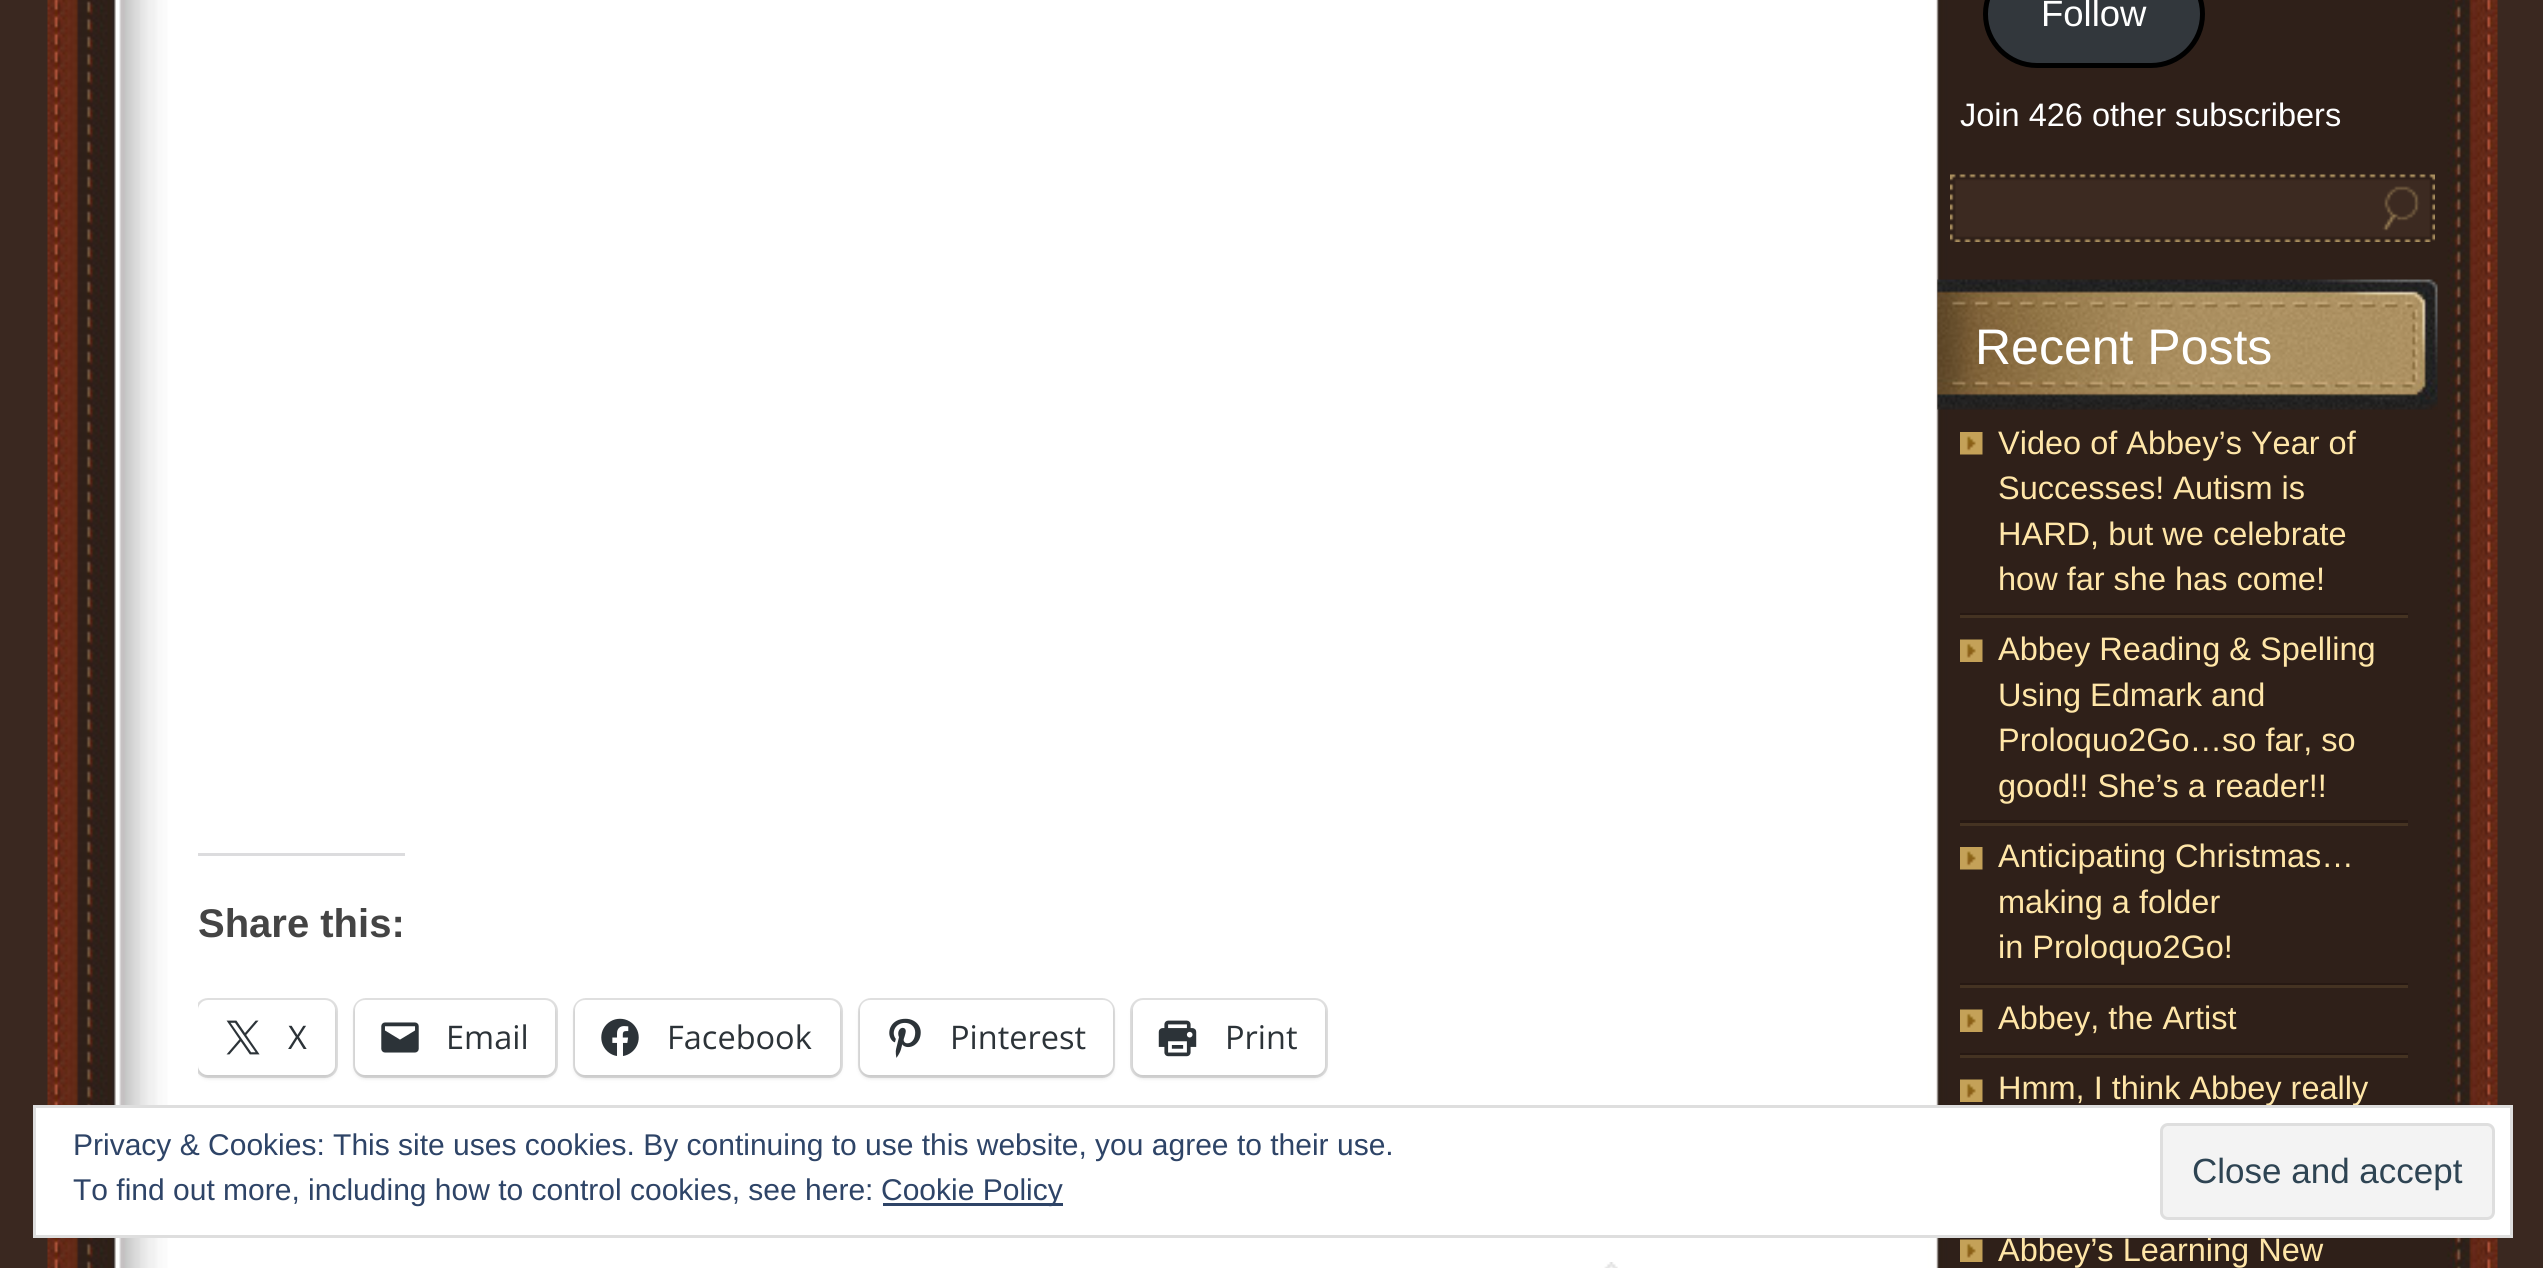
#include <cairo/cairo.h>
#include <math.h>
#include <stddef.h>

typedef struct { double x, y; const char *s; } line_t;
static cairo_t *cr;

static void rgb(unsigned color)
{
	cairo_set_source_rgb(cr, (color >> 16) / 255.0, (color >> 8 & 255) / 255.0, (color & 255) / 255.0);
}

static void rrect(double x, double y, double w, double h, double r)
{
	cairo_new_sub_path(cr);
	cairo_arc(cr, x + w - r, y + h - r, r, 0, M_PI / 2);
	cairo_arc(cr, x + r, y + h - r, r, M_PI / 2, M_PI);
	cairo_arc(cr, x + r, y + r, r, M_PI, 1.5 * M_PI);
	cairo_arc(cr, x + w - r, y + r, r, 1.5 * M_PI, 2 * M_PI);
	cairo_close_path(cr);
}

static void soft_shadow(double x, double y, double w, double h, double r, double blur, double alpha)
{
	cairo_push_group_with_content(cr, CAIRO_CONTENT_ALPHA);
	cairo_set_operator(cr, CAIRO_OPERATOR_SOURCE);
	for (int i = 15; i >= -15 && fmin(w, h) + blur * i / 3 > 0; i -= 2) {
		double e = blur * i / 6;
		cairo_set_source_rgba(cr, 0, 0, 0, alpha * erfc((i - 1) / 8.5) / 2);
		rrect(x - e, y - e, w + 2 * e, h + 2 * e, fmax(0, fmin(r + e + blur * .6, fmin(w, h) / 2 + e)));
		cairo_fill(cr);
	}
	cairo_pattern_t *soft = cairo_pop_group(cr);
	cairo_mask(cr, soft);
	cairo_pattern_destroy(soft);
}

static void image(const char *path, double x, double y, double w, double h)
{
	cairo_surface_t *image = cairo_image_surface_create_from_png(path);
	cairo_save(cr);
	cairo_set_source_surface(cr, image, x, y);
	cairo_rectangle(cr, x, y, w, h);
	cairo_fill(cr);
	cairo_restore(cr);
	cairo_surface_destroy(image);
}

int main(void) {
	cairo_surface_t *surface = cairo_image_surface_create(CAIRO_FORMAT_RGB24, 2543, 1268);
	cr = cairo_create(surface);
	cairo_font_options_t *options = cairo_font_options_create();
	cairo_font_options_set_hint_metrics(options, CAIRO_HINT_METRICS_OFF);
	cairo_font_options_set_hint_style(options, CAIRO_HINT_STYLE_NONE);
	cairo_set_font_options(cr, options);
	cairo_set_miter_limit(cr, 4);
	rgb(0x3a2820);
	cairo_paint(cr);
	image("img/1.png", 47, 0, 2451, 1268);
	rgb(0xdcdcde);
	cairo_rectangle(cr, 198, 853, 207, 3);
	cairo_fill(cr);
	cairo_save(cr);
	cairo_rectangle(cr, 198, 0, 1612, 1263);
	cairo_clip(cr);
	rrect(196.5, 999.5, 140, 77, 11.5);
	rgb(0xe0e0e0);
	cairo_set_line_width(cr, 3);
	cairo_stroke(cr);
	cairo_restore(cr);
	cairo_save(cr);
	cairo_rectangle(cr, 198, 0, 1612, 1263);
	cairo_clip(cr);
	rgb(0x000000);
	soft_shadow(198, 1003, 137, 75, 10, 2.5, 0.12);
	cairo_restore(cr);
	rgb(0xffffff);
	rrect(198, 1000, 137, 75, 10);
	cairo_fill(cr);
	image("img/2.png", 226, 1020, 34, 35);
	rrect(354.5, 999.5, 202, 77, 11.5);
	rgb(0xe0e0e0);
	cairo_set_line_width(cr, 3);
	cairo_stroke(cr);
	rgb(0x000000);
	soft_shadow(355, 1003, 200, 75, 10, 2.5, 0.12);
	rgb(0xffffff);
	rrect(355, 1000, 200, 75, 10);
	cairo_fill(cr);
	image("img/3.png", 381, 1022, 38, 31);
	rrect(574.5, 999.5, 267, 77, 11.5);
	rgb(0xe0e0e0);
	cairo_stroke(cr);
	rgb(0x000000);
	soft_shadow(575, 1003, 265, 75, 10, 2.5, 0.12);
	rgb(0xffffff);
	rrect(575, 1000, 265, 75, 10);
	cairo_fill(cr);
	image("img/4.png", 601, 1018, 38, 38);
	rrect(859.5, 999.5, 254, 77, 11.5);
	rgb(0xe0e0e0);
	cairo_stroke(cr);
	rgb(0x000000);
	soft_shadow(860, 1003, 253, 75, 10, 2.5, 0.12);
	rgb(0xffffff);
	rrect(860, 1000, 253, 75, 10);
	cairo_fill(cr);
	image("img/5.png", 889, 1018, 32, 40);
	rrect(1131.5, 999.5, 195, 77, 11.5);
	rgb(0xe0e0e0);
	cairo_stroke(cr);
	rgb(0x000000);
	soft_shadow(1133, 1003, 192, 75, 10, 2.5, 0.12);
	rgb(0xffffff);
	rrect(1133, 1000, 192, 75, 10);
	cairo_fill(cr);
	image("img/6.png", 1158, 1020, 39, 37);
	image("img/7.png", 1604, 1262, 14, 6);
	rgb(0x32373c);
	rrect(1985.5, -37.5, 217, 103, 51.5);
	cairo_fill_preserve(cr);
	rgb(0x000000);
	cairo_set_line_width(cr, 5);
	cairo_stroke(cr);
	image("img/8.png", 1950, 174, 485, 68);
	image("img/9.png", 1937, 279, 501, 131);
	image("img/10.png", 1960, 432, 23, 23);
	rgb(0x271913);
	cairo_rectangle(cr, 1960, 613, 448, 2);
	cairo_fill(cr);
	image("img/11.png", 1960, 639, 23, 23);
	rgb(0x453322);
	cairo_rectangle(cr, 1960, 615, 448, 3);
	cairo_fill(cr);
	rgb(0x271913);
	cairo_rectangle(cr, 1960, 820, 448, 3);
	cairo_fill(cr);
	image("img/10.png", 1960, 847, 23, 23);
	rgb(0x453322);
	cairo_rectangle(cr, 1960, 823, 448, 3);
	cairo_fill(cr);
	rgb(0x271913);
	cairo_rectangle(cr, 1960, 983, 448, 2);
	cairo_fill(cr);
	image("img/11.png", 1960, 1009, 23, 23);
	rgb(0x453322);
	cairo_rectangle(cr, 1960, 985, 448, 3);
	cairo_fill(cr);
	rgb(0x271913);
	cairo_rectangle(cr, 1960, 1053, 448, 2);
	cairo_fill(cr);
	image("img/11.png", 1960, 1079, 23, 23);
	rgb(0x453322);
	cairo_rectangle(cr, 1960, 1055, 448, 3);
	cairo_fill(cr);
	image("img/11.png", 1960, 1239, 23, 23);
	cairo_select_font_face(cr, "Liberation Sans", CAIRO_FONT_SLANT_NORMAL, CAIRO_FONT_WEIGHT_BOLD);
	cairo_set_font_size(cr, 40);
	rgb(0x444444);
	cairo_move_to(cr, 198, 937);
	cairo_show_text(cr, "Share this:");
	cairo_select_font_face(cr, "Open Sans", CAIRO_FONT_SLANT_NORMAL, CAIRO_FONT_WEIGHT_NORMAL);
	cairo_set_font_size(cr, 32.5);
	rgb(0x2c3338);
	{
		static const line_t items[] = {
			{288, 1049, "X"},
			{446, 1049, "Email"},
			{667, 1049, "Facebook"},
			{950, 1049, "Pinterest"},
			{1225, 1049, "Print"},
		};
		for (size_t i = 0; i < sizeof items / sizeof *items; i++) {
			cairo_move_to(cr, items[i].x, items[i].y);
			cairo_show_text(cr, items[i].s);
		}
	}
	cairo_select_font_face(cr, "Liberation Sans", CAIRO_FONT_SLANT_NORMAL, CAIRO_FONT_WEIGHT_NORMAL);
	cairo_set_font_size(cr, 36.5);
	rgb(0xffffff);
	cairo_move_to(cr, 2041, 26);
	cairo_show_text(cr, "Follow");
	cairo_set_font_size(cr, 32.5);
	cairo_move_to(cr, 1960, 126);
	cairo_show_text(cr, "Join 426 other subscribers");
	cairo_set_font_size(cr, 50);
	cairo_move_to(cr, 1975, 364);
	cairo_show_text(cr, "Recent Posts");
	cairo_set_font_size(cr, 32.5);
	rgb(0xffe6a8);
	{
		static const line_t items[] = {
			{1998, 454, "Video of Abbey’s Year of"},
			{1998, 499, "Successes! Autism is"},
			{1998, 545, "HARD, but we celebrate"},
			{1998, 590, "how far she has come!"},
			{1998, 660, "Abbey Reading & Spelling"},
			{1998, 706, "Using Edmark and"},
			{1998, 751, "Proloquo2Go…so far, so"},
			{1998, 797, "good!! She’s a reader!!"},
			{1998, 867, "Anticipating Christmas…"},
			{1998, 913, "making a folder"},
			{1998, 958, "in Proloquo2Go!"},
			{1998, 1029, "Abbey, the Artist"},
			{1998, 1099, "Hmm, I think Abbey really"},
			{1998, 1261, "Abbey’s Learning New"},
		};
		for (size_t i = 0; i < sizeof items / sizeof *items; i++) {
			cairo_move_to(cr, items[i].x, items[i].y);
			cairo_show_text(cr, items[i].s);
		}
	}
	rgb(0xffffff);
	cairo_rectangle(cr, 34.5, 1106.5, 2477, 130);
	cairo_fill_preserve(cr);
	rgb(0xdedede);
	cairo_set_line_width(cr, 3);
	cairo_stroke(cr);
	cairo_set_font_size(cr, 30);
	rgb(0x2e4467);
	cairo_move_to(cr, 73, 1155);
	cairo_show_text(cr, "Privacy & Cookies: This site uses cookies. By continuing to use this website, you agree to their use.");
	cairo_move_to(cr, 73, 1200);
	cairo_show_text(cr, "To find out more, including how to control cookies, see here:");
	cairo_rectangle(cr, 883, 1203, 180, 3);
	cairo_fill(cr);
	cairo_move_to(cr, 881, 1200);
	cairo_show_text(cr, "Cookie Policy");
	rgb(0xf3f3f3);
	rrect(2161.5, 1124.5, 332, 94, 6.5);
	cairo_fill_preserve(cr);
	rgb(0xdedede);
	cairo_stroke(cr);
	cairo_set_font_size(cr, 35);
	rgb(0x2e4453);
	cairo_move_to(cr, 2192, 1183);
	cairo_show_text(cr, "Close and accept");
	cairo_surface_write_to_png(surface, "page.png");
	cairo_font_options_destroy(options);
	cairo_destroy(cr);
	cairo_surface_destroy(surface);
	return 0;
}
